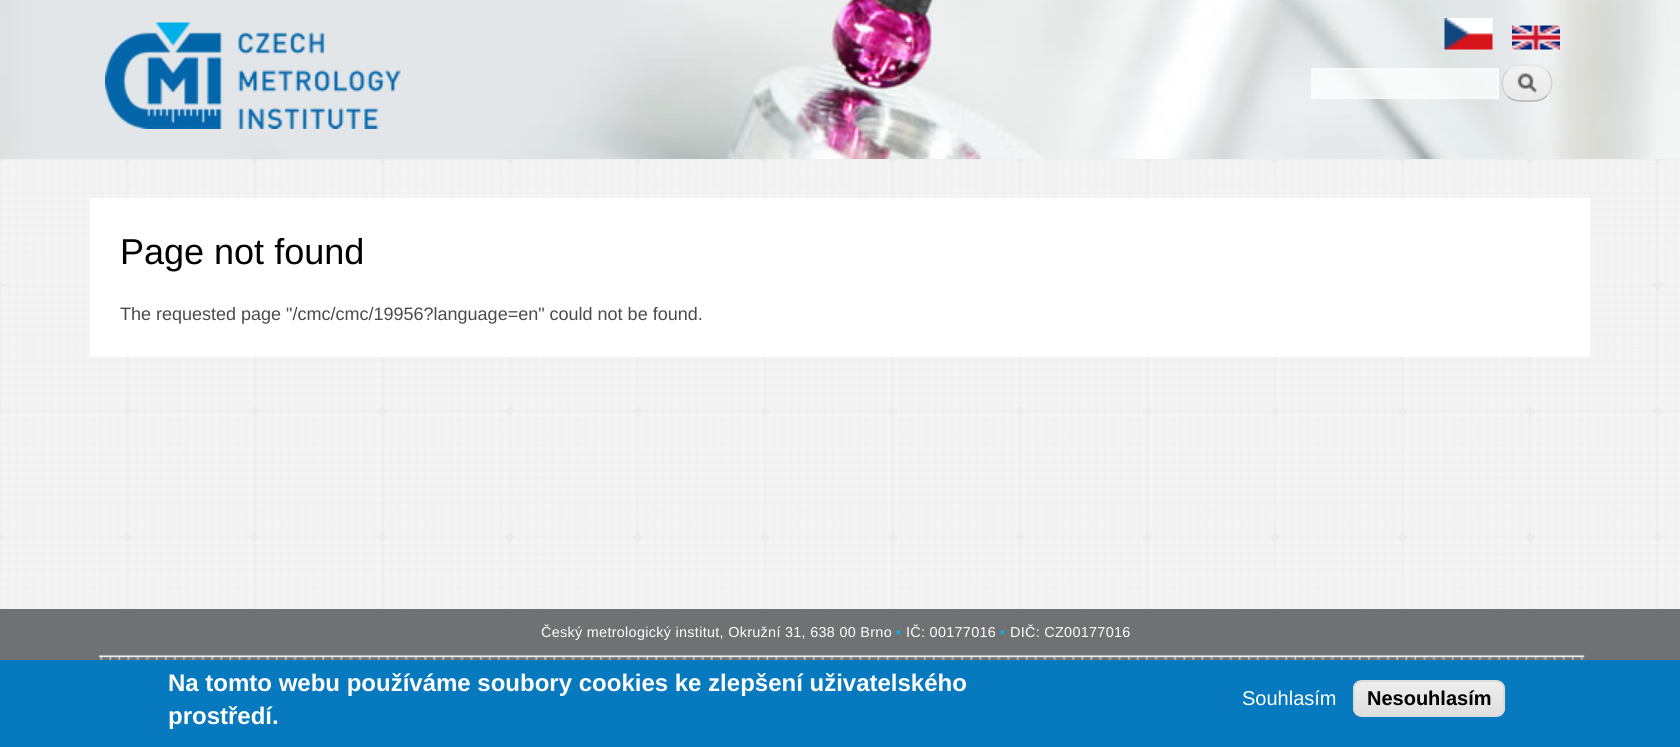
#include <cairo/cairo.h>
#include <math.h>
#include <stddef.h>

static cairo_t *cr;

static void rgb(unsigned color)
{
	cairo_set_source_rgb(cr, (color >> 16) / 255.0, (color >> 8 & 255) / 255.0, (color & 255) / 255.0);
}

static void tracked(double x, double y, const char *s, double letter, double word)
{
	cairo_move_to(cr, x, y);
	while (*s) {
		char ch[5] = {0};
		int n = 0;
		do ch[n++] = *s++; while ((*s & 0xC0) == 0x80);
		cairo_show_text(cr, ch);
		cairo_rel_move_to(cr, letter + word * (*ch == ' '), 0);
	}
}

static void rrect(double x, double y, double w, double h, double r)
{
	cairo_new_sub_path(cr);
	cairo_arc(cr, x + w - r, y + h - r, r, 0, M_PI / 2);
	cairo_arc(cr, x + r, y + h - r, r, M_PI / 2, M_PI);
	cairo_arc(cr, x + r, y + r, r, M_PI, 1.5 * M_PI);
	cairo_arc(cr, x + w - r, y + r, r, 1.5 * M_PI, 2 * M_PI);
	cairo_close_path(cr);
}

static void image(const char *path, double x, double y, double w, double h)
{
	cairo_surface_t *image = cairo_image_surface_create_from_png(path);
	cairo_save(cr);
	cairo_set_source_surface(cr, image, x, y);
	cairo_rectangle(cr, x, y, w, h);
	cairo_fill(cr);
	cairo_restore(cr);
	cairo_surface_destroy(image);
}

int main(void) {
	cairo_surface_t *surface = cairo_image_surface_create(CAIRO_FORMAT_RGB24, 1680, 747);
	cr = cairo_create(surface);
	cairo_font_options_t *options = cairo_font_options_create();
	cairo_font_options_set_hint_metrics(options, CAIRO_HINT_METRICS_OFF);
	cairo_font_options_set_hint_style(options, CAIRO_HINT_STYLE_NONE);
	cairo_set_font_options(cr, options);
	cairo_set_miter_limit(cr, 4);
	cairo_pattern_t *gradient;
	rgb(0xffffff);
	cairo_paint(cr);
	image("img/1.png", 0, 0, 1680, 159);
	image("img/2.png", 105, 22, 296, 107);
	image("img/3.png", 1444, 18, 49, 32);
	image("img/4.png", 1512, 25, 48, 25);
	cairo_set_source_rgba(cr, 1, 1, 1, 0.7);
	cairo_rectangle(cr, 1311, 68, 188, 31);
	cairo_fill(cr);
	cairo_rectangle(cr, 1312, 69, 186, 29);
	cairo_set_source_rgba(cr, 1, 1, 1, 0.3);
	cairo_stroke(cr);
	image("img/5.png", 1502, 66, 48, 36);
	cairo_new_path(cr);
	cairo_move_to(cr, 1507.5, 70.5);
	cairo_curve_to(cr, 1513, 65, 1519.5, 65, 1527, 65);
	cairo_curve_to(cr, 1534.5, 65, 1541, 65, 1546.5, 70.5);
	rgb(0xe4e4e4);
	cairo_set_line_width(cr, 1.5);
	cairo_stroke(cr);
	cairo_new_path(cr);
	cairo_move_to(cr, 1546.5, 70.5);
	cairo_curve_to(cr, 1553.5, 77.5, 1553.5, 89, 1546.5, 96);
	rgb(0xd2d2d2);
	cairo_stroke(cr);
	cairo_new_path(cr);
	cairo_move_to(cr, 1546.5, 96);
	cairo_curve_to(cr, 1541, 101.5, 1534.5, 101, 1527, 101);
	cairo_curve_to(cr, 1519.5, 101, 1513, 101.5, 1507.5, 96);
	rgb(0xb4b4b4);
	cairo_stroke(cr);
	cairo_new_path(cr);
	cairo_move_to(cr, 1507.5, 96);
	cairo_curve_to(cr, 1500.5, 89, 1500.5, 77.5, 1507.5, 70.5);
	rgb(0xd2d2d2);
	cairo_stroke(cr);
	image("img/6.png", 0, 159, 1680, 450);
	rgb(0xffffff);
	cairo_rectangle(cr, 90, 198, 1500, 159);
	cairo_fill(cr);
	rgb(0x707173);
	cairo_rectangle(cr, 0, 609, 1680, 51);
	cairo_fill(cr);
	image("img/7.png", 98, 655, 1487, 5);
	rgb(0x0779bf);
	cairo_rectangle(cr, 0, 660, 1680, 87);
	cairo_fill(cr);
	cairo_save(cr);
	rrect(1353, 680, 152, 37, 9);
	cairo_clip(cr);
	gradient = cairo_pattern_create_linear(1429, 681, 1429, 716);
	cairo_pattern_add_color_stop_rgba(gradient, 0.05, 0.929, 0.929, 0.929, 1);
	cairo_pattern_add_color_stop_rgba(gradient, 1, 0.875, 0.875, 0.875, 1);
	cairo_set_source(cr, gradient);
	cairo_pattern_destroy(gradient);
	cairo_rectangle(cr, 1353, 681, 152, 35);
	cairo_fill(cr);
	cairo_restore(cr);
	rrect(1354, 681, 150, 35, 8);
	rgb(0xdcdcdc);
	cairo_set_line_width(cr, 2);
	cairo_stroke(cr);
	cairo_select_font_face(cr, "Liberation Sans", CAIRO_FONT_SLANT_NORMAL, CAIRO_FONT_WEIGHT_NORMAL);
	cairo_set_font_size(cr, 36);
	rgb(0x000000);
	cairo_move_to(cr, 120, 264);
	cairo_show_text(cr, "Page not found");
	cairo_set_font_size(cr, 18);
	rgb(0x4a4a4a);
	cairo_move_to(cr, 120, 320);
	cairo_show_text(cr, "The requested page \"/cmc/cmc/19956?language=en\" could not be found.");
	cairo_set_font_size(cr, 14.4);
	rgb(0xffffff);
	tracked(541, 637, "Český metrologický institut, Okružní 31, 638 00 Brno", 0.3, 0);
	rgb(0x00b1fd);
	tracked(896, 637, "•", 0.3, 0);
	rgb(0xffffff);
	tracked(906, 637, "IČ: 00177016", 0.3, 0);
	rgb(0x00b1fd);
	tracked(1000, 637, "•", 0.3, 0);
	rgb(0xffffff);
	tracked(1010, 637, "DIČ: CZ00177016", 0.3, 0);
	cairo_select_font_face(cr, "Liberation Sans", CAIRO_FONT_SLANT_NORMAL, CAIRO_FONT_WEIGHT_BOLD);
	cairo_set_font_size(cr, 24);
	cairo_move_to(cr, 168, 691);
	cairo_show_text(cr, "Na tomto webu používáme soubory cookies ke zlepšení uživatelského");
	cairo_move_to(cr, 168, 724);
	cairo_show_text(cr, "prostředí.");
	cairo_select_font_face(cr, "Liberation Sans", CAIRO_FONT_SLANT_NORMAL, CAIRO_FONT_WEIGHT_NORMAL);
	cairo_set_font_size(cr, 20);
	cairo_move_to(cr, 1242, 705);
	cairo_show_text(cr, "Souhlasím");
	cairo_select_font_face(cr, "Liberation Sans", CAIRO_FONT_SLANT_NORMAL, CAIRO_FONT_WEIGHT_BOLD);
	rgb(0x000000);
	cairo_move_to(cr, 1367, 705);
	cairo_show_text(cr, "Nesouhlasím");
	cairo_surface_write_to_png(surface, "page.png");
	cairo_font_options_destroy(options);
	cairo_destroy(cr);
	cairo_surface_destroy(surface);
	return 0;
}
